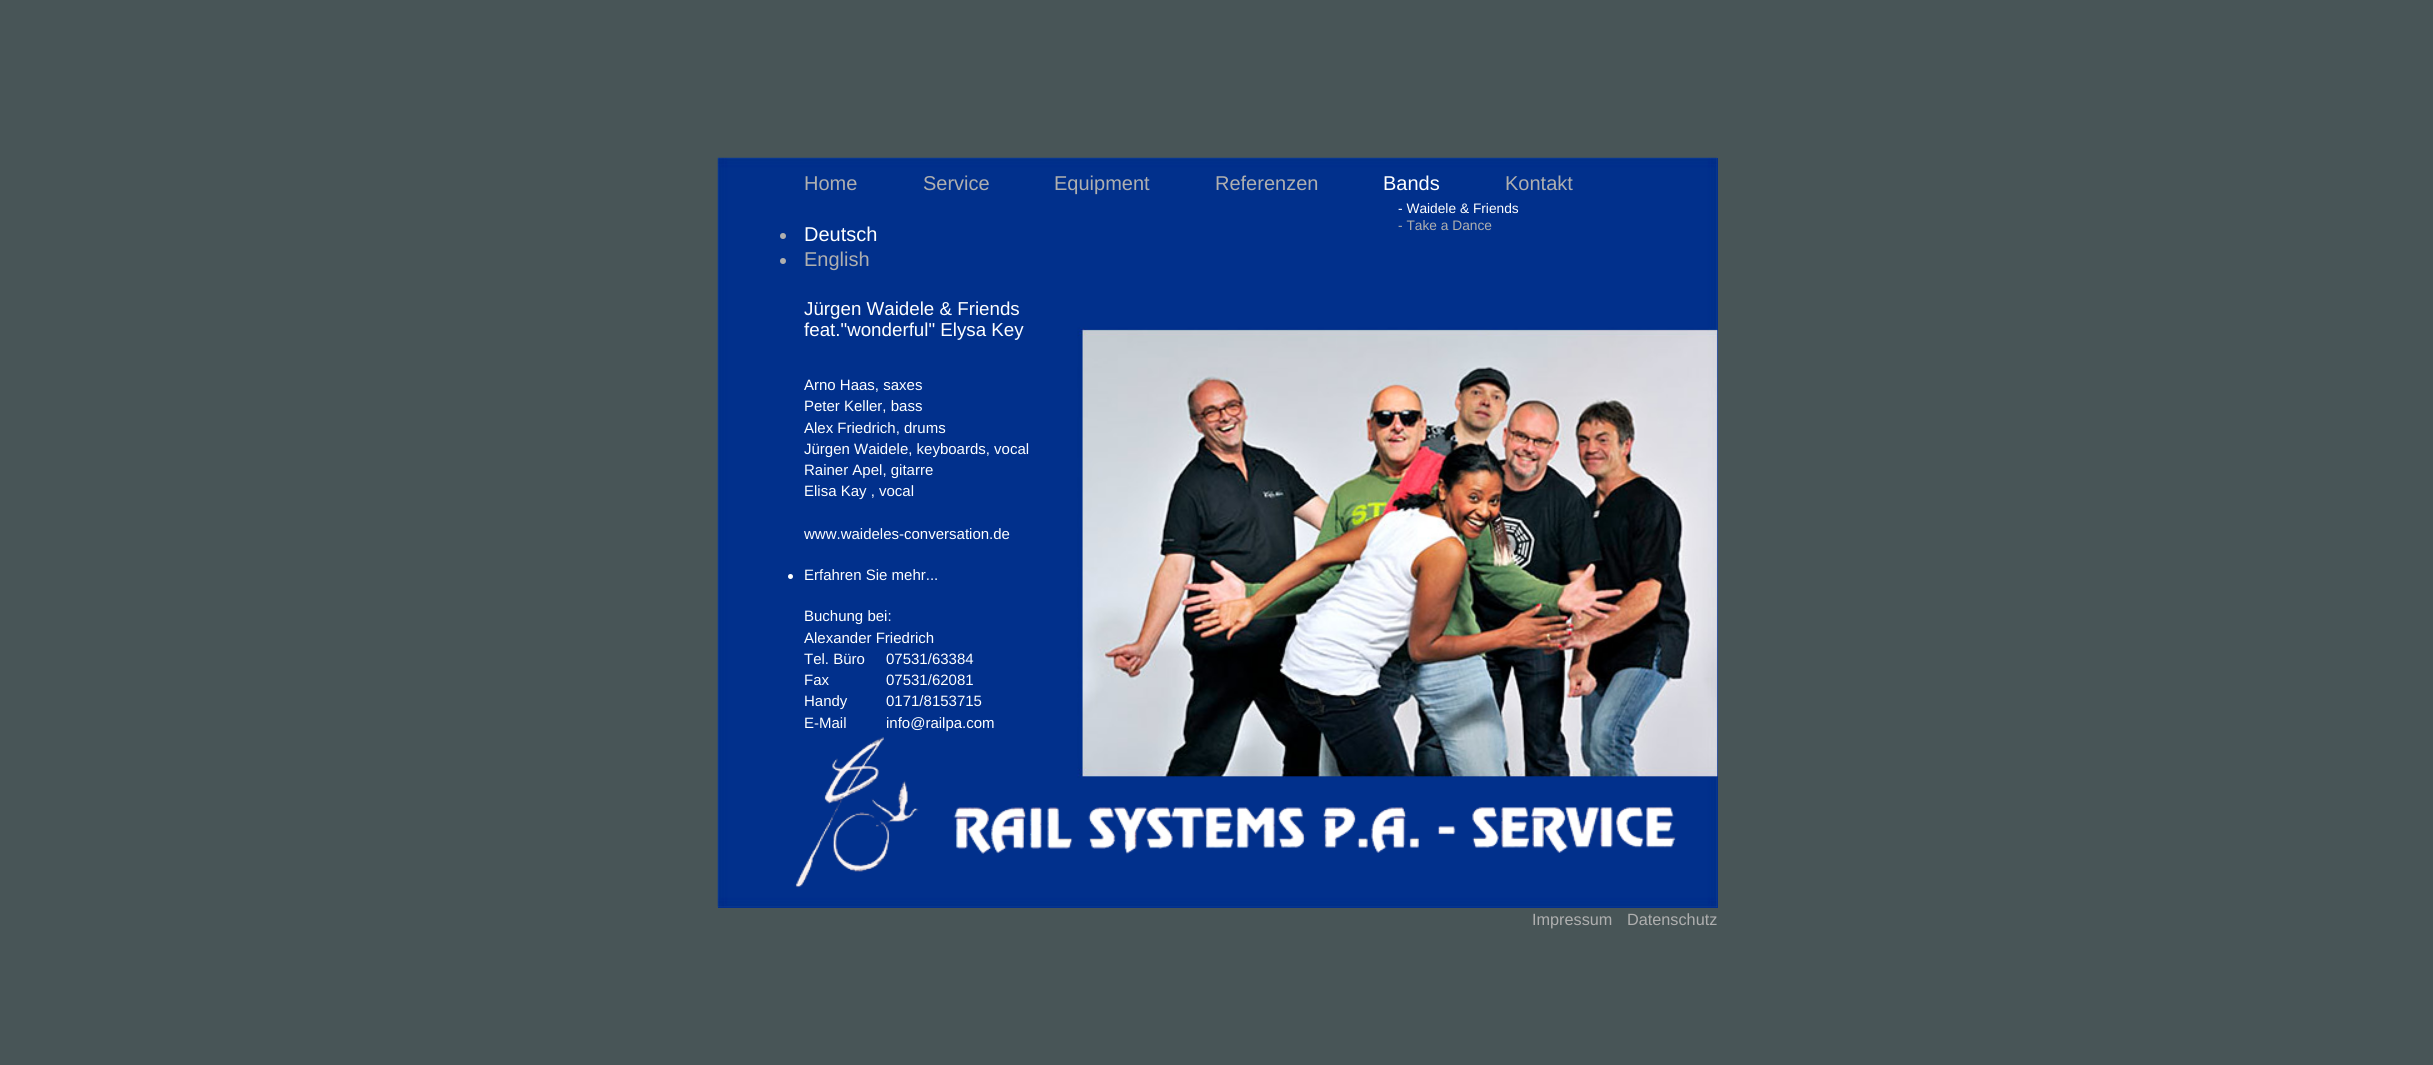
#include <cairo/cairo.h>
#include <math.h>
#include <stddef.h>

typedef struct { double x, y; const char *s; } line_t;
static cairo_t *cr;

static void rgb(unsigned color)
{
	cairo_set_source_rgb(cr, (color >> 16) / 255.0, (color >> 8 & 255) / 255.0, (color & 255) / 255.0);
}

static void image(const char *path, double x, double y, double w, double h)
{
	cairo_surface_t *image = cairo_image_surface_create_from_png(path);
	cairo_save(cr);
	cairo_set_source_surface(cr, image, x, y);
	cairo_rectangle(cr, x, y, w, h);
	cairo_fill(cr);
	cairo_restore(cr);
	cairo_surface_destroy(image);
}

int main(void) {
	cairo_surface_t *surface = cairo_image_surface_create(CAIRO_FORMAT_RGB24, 2433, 1065);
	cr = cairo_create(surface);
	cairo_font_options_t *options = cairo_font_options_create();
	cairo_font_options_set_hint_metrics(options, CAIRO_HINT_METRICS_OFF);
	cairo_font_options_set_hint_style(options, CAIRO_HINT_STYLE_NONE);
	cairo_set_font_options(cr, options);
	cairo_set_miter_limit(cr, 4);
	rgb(0x485557);
	cairo_paint(cr);
	rgb(0x002e8c);
	cairo_rectangle(cr, 718, 158, 1000, 750);
	cairo_fill(cr);
	image("img/1.png", 717, 157, 1001, 751);
	rgb(0xafafaf);
	cairo_arc(cr, 783, 236, 3, 0, 2 * M_PI);
	cairo_fill(cr);
	cairo_arc(cr, 783, 261, 3, 0, 2 * M_PI);
	cairo_fill(cr);
	rgb(0xffffff);
	cairo_arc(cr, 790.5, 576.5, 2.5, 0, 2 * M_PI);
	cairo_fill(cr);
	image("img/2.png", 795, 737, 125, 151);
	image("img/3.png", 953, 806, 723, 48);
	cairo_select_font_face(cr, "Liberation Sans", CAIRO_FONT_SLANT_NORMAL, CAIRO_FONT_WEIGHT_NORMAL);
	cairo_set_font_size(cr, 20);
	rgb(0xafafaf);
	{
		static const line_t items[] = {
			{804, 190, "Home"},
			{923, 190, "Service"},
			{1054, 190, "Equipment"},
			{1215, 190, "Referenzen"},
		};
		for (size_t i = 0; i < sizeof items / sizeof *items; i++) {
			cairo_move_to(cr, items[i].x, items[i].y);
			cairo_show_text(cr, items[i].s);
		}
	}
	rgb(0xffffff);
	cairo_move_to(cr, 1383, 190);
	cairo_show_text(cr, "Bands");
	cairo_set_font_size(cr, 13.75);
	cairo_move_to(cr, 1398, 213);
	cairo_show_text(cr, "- Waidele & Friends");
	rgb(0xafafaf);
	cairo_move_to(cr, 1398, 230);
	cairo_show_text(cr, "- Take a Dance");
	cairo_set_font_size(cr, 20);
	cairo_move_to(cr, 1505, 190);
	cairo_show_text(cr, "Kontakt");
	rgb(0xffffff);
	cairo_move_to(cr, 804, 241);
	cairo_show_text(cr, "Deutsch");
	rgb(0xafafaf);
	cairo_move_to(cr, 804, 266);
	cairo_show_text(cr, "English");
	cairo_set_font_size(cr, 18.75);
	rgb(0xffffff);
	cairo_move_to(cr, 804, 315);
	cairo_show_text(cr, "Jürgen Waidele & Friends");
	cairo_move_to(cr, 804, 336);
	cairo_show_text(cr, "feat.\"wonderful\" Elysa Key");
	cairo_set_font_size(cr, 15);
	{
		static const line_t items[] = {
			{804, 390, "Arno Haas, saxes"},
			{804, 411, "Peter Keller, bass"},
			{804, 433, "Alex Friedrich, drums"},
			{804, 454, "Jürgen Waidele, keyboards, vocal"},
			{804, 475, "Rainer Apel, gitarre"},
			{804, 496, "Elisa Kay , vocal"},
			{804, 539, "www.waideles-conversation.de"},
			{804, 580, "Erfahren Sie mehr..."},
			{804, 621, "Buchung bei:"},
			{804, 643, "Alexander Friedrich"},
			{804, 664, "Tel. Büro"},
			{804, 685, "Fax"},
			{804, 706, "Handy"},
			{804, 728, "E-Mail"},
			{886, 664, "07531/63384"},
			{886, 685, "07531/62081"},
			{886, 706, "0171/8153715"},
			{886, 728, "info@railpa.com"},
		};
		for (size_t i = 0; i < sizeof items / sizeof *items; i++) {
			cairo_move_to(cr, items[i].x, items[i].y);
			cairo_show_text(cr, items[i].s);
		}
	}
	cairo_set_font_size(cr, 16.25);
	rgb(0xafafaf);
	cairo_move_to(cr, 1532, 925);
	cairo_show_text(cr, "Impressum");
	cairo_move_to(cr, 1627, 925);
	cairo_show_text(cr, "Datenschutz");
	cairo_surface_write_to_png(surface, "page.png");
	cairo_font_options_destroy(options);
	cairo_destroy(cr);
	cairo_surface_destroy(surface);
	return 0;
}
